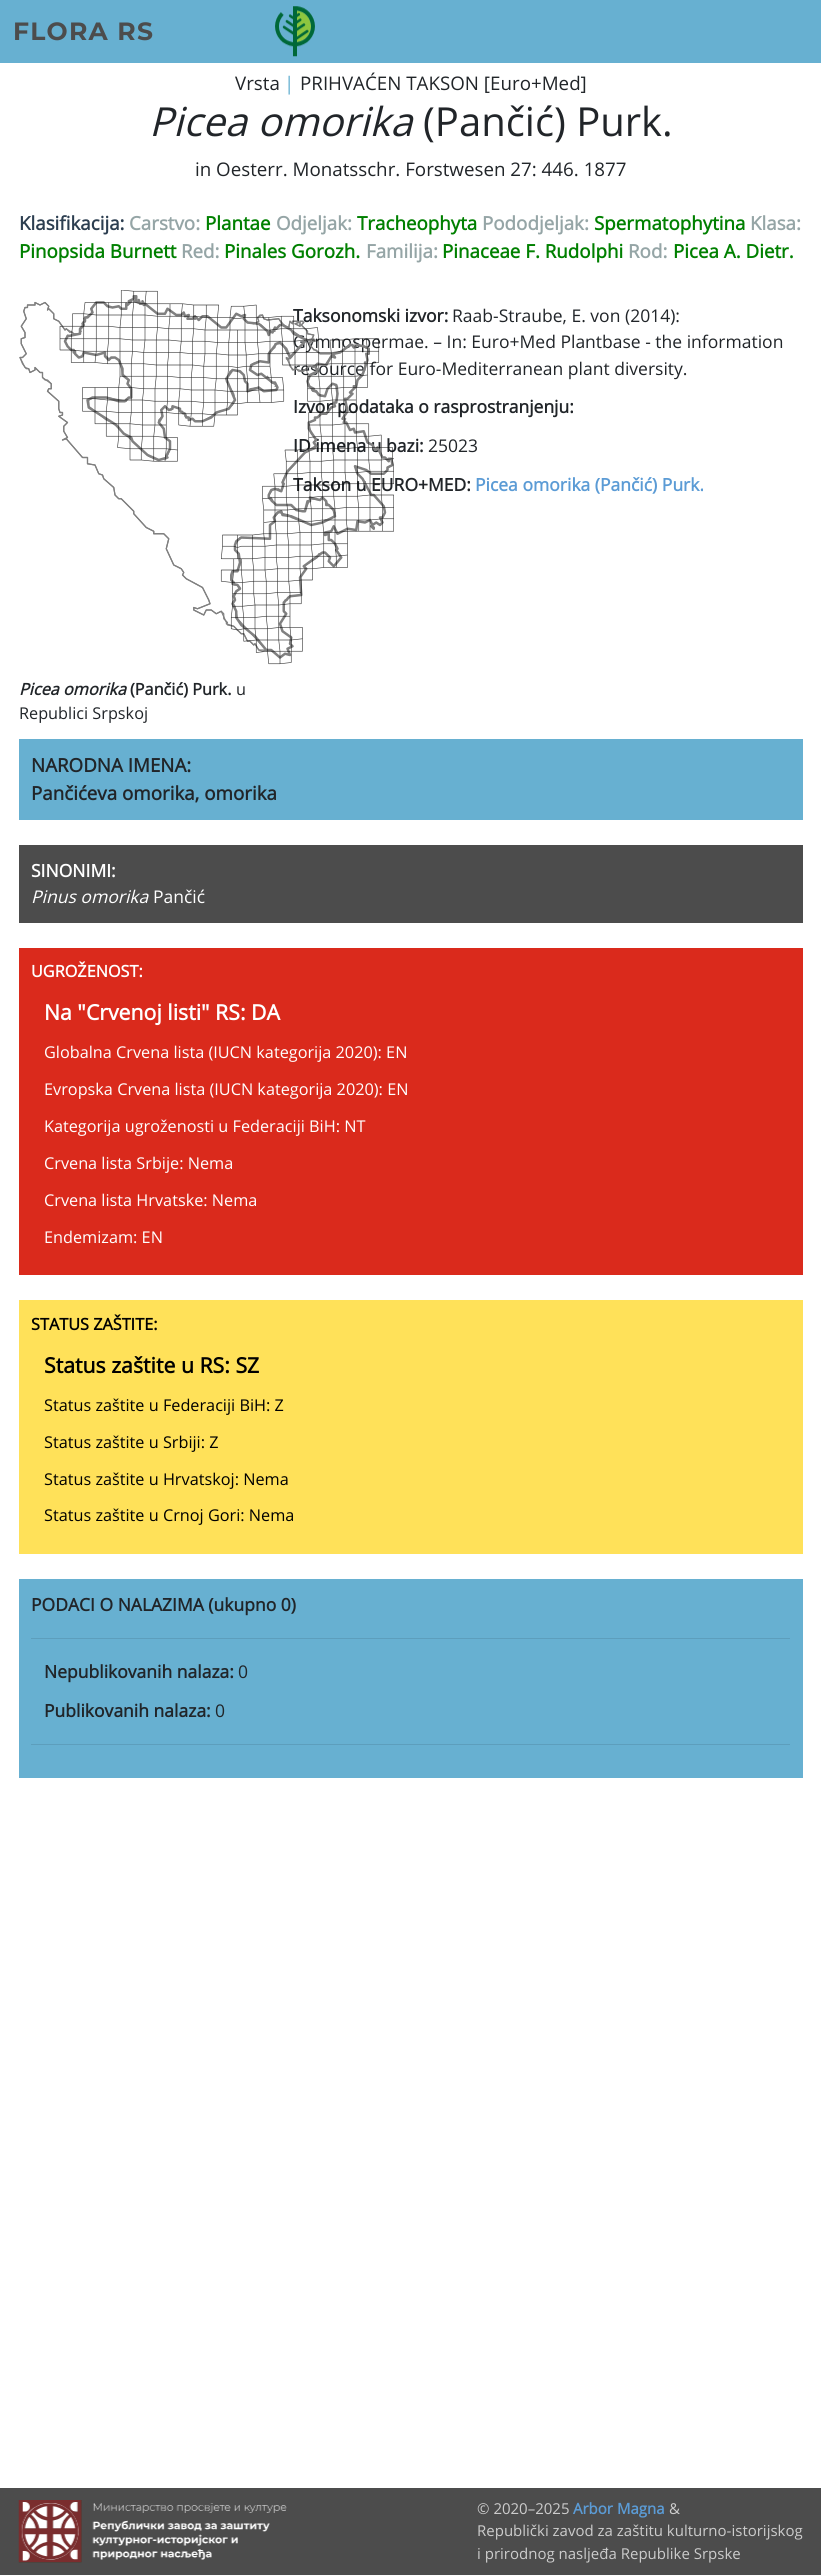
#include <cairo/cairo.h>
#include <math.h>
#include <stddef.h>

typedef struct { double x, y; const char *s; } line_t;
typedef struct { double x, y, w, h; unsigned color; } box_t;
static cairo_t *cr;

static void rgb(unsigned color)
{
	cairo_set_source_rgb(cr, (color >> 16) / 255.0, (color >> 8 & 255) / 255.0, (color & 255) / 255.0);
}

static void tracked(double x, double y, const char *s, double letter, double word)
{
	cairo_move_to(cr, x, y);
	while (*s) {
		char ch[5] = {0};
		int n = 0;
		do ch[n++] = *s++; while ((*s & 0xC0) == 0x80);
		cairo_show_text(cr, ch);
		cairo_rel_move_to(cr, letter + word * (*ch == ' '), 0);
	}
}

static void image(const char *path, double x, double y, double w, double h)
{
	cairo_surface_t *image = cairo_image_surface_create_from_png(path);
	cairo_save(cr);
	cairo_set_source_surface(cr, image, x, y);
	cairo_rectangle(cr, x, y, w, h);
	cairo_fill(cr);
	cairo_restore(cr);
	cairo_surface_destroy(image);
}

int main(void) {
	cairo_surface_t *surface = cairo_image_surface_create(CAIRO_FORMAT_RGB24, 821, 2575);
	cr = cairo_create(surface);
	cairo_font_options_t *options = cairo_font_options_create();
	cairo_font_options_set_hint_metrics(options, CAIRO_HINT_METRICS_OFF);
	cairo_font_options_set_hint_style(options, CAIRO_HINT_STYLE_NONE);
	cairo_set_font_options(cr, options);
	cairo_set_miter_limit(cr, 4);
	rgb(0xffffff);
	cairo_paint(cr);
	rgb(0x67b0d1);
	cairo_rectangle(cr, 0, 0, 821, 63);
	cairo_fill(cr);
	image("img/1.png", 275, 6, 40, 51);
	{
		static const box_t items[] = {
			{19, 739, 784, 81, 0x67b0d1},
			{19, 845, 784, 78, 0x4c4c4c},
			{19, 948, 784, 327, 0xda2a1c},
			{19, 1300, 784, 254, 0xffe159},
			{19, 1579, 784, 199, 0x67b0d1},
			{31, 1638, 759, 1, 0x5d9ebc},
			{31, 1744, 759, 1, 0x5d9ebc},
			{0, 2488, 821, 87, 0x4c4c4c},
		};
		for (size_t i = 0; i < sizeof items / sizeof *items; i++) {
			rgb(items[i].color);
			cairo_rectangle(cr, items[i].x, items[i].y, items[i].w, items[i].h);
			cairo_fill(cr);
		}
	}
	image("img/3.png", 18, 2500, 269, 63);
	cairo_select_font_face(cr, "Montserrat Thin", CAIRO_FONT_SLANT_NORMAL, CAIRO_FONT_WEIGHT_NORMAL);
	cairo_set_font_size(cr, 25);
	tracked(13, 40, "FLORA RS", 1.25, 0);
	cairo_select_font_face(cr, "Open Sans", CAIRO_FONT_SLANT_NORMAL, CAIRO_FONT_WEIGHT_NORMAL);
	cairo_set_font_size(cr, 18.75);
	rgb(0x212529);
	cairo_move_to(cr, 235, 90);
	cairo_show_text(cr, "Vrsta");
	rgb(0x67b0d1);
	cairo_move_to(cr, 284, 90);
	cairo_show_text(cr, "|");
	rgb(0x212529);
	cairo_move_to(cr, 300, 90);
	cairo_show_text(cr, "PRIHVAĆEN TAKSON [Euro+Med]");
	cairo_select_font_face(cr, "Open Sans", CAIRO_FONT_SLANT_ITALIC, CAIRO_FONT_WEIGHT_NORMAL);
	cairo_set_font_size(cr, 40);
	cairo_move_to(cr, 149, 136);
	cairo_show_text(cr, "Picea omorika");
	cairo_select_font_face(cr, "Open Sans", CAIRO_FONT_SLANT_NORMAL, CAIRO_FONT_WEIGHT_NORMAL);
	cairo_move_to(cr, 423, 136);
	cairo_show_text(cr, "(Pančić) Purk.");
	cairo_set_font_size(cr, 18.75);
	cairo_move_to(cr, 195, 176);
	cairo_show_text(cr, "in Oesterr. Monatsschr. Forstwesen 27: 446. 1877");
	cairo_select_font_face(cr, "Open Sans", CAIRO_FONT_SLANT_NORMAL, CAIRO_FONT_WEIGHT_BOLD);
	rgb(0x2c3e50);
	cairo_move_to(cr, 19, 230);
	cairo_show_text(cr, "Klasifikacija:");
	rgb(0x95a5a6);
	cairo_move_to(cr, 129, 230);
	cairo_show_text(cr, "Carstvo:");
	rgb(0x008000);
	cairo_move_to(cr, 205, 230);
	cairo_show_text(cr, "Plantae");
	rgb(0x95a5a6);
	cairo_move_to(cr, 276, 230);
	cairo_show_text(cr, "Odjeljak:");
	rgb(0x008000);
	cairo_move_to(cr, 357, 230);
	cairo_show_text(cr, "Tracheophyta");
	rgb(0x95a5a6);
	cairo_move_to(cr, 482, 230);
	cairo_show_text(cr, "Pododjeljak:");
	rgb(0x008000);
	cairo_move_to(cr, 594, 230);
	cairo_show_text(cr, "Spermatophytina");
	rgb(0x95a5a6);
	cairo_move_to(cr, 750, 230);
	cairo_show_text(cr, "Klasa:");
	rgb(0x008000);
	cairo_move_to(cr, 19, 258);
	cairo_show_text(cr, "Pinopsida Burnett");
	rgb(0x95a5a6);
	cairo_move_to(cr, 181, 258);
	cairo_show_text(cr, "Red:");
	rgb(0x008000);
	cairo_move_to(cr, 224, 258);
	cairo_show_text(cr, "Pinales Gorozh.");
	rgb(0x95a5a6);
	cairo_move_to(cr, 366, 258);
	cairo_show_text(cr, "Familija:");
	rgb(0x008000);
	cairo_move_to(cr, 442, 258);
	cairo_show_text(cr, "Pinaceae F. Rudolphi");
	rgb(0x95a5a6);
	cairo_move_to(cr, 628, 258);
	cairo_show_text(cr, "Rod:");
	rgb(0x008000);
	cairo_move_to(cr, 673, 258);
	cairo_show_text(cr, "Picea A. Dietr.");
	cairo_set_font_size(cr, 17.5);
	rgb(0x212529);
	cairo_move_to(cr, 293, 322);
	cairo_show_text(cr, "Taksonomski izvor:");
	cairo_select_font_face(cr, "Open Sans", CAIRO_FONT_SLANT_NORMAL, CAIRO_FONT_WEIGHT_NORMAL);
	{
		static const line_t items[] = {
			{452, 322, "Raab-Straube, E. von (2014):"},
			{293, 348, "Gymnospermae. – In: Euro+Med Plantbase - the information"},
			{293, 375, "resource for Euro-Mediterranean plant diversity."},
		};
		for (size_t i = 0; i < sizeof items / sizeof *items; i++) {
			cairo_move_to(cr, items[i].x, items[i].y);
			cairo_show_text(cr, items[i].s);
		}
	}
	cairo_select_font_face(cr, "Open Sans", CAIRO_FONT_SLANT_NORMAL, CAIRO_FONT_WEIGHT_BOLD);
	cairo_move_to(cr, 293, 413);
	cairo_show_text(cr, "Izvor podataka o rasprostranjenju:");
	cairo_move_to(cr, 293, 452);
	cairo_show_text(cr, "ID imena u bazi:");
	cairo_select_font_face(cr, "Open Sans", CAIRO_FONT_SLANT_NORMAL, CAIRO_FONT_WEIGHT_NORMAL);
	cairo_move_to(cr, 428, 452);
	cairo_show_text(cr, "25023");
	cairo_select_font_face(cr, "Open Sans", CAIRO_FONT_SLANT_NORMAL, CAIRO_FONT_WEIGHT_BOLD);
	cairo_move_to(cr, 293, 491);
	cairo_show_text(cr, "Takson u EURO+MED:");
	rgb(0x5b9bd5);
	cairo_move_to(cr, 475, 491);
	cairo_show_text(cr, "Picea omorika (Pančić) Purk.");
	image("img/2.png", 19, 290, 375, 375);
	cairo_select_font_face(cr, "Open Sans", CAIRO_FONT_SLANT_ITALIC, CAIRO_FONT_WEIGHT_BOLD);
	cairo_set_font_size(cr, 16.25);
	rgb(0x212529);
	cairo_move_to(cr, 19, 695);
	cairo_show_text(cr, "Picea omorika");
	cairo_select_font_face(cr, "Open Sans", CAIRO_FONT_SLANT_NORMAL, CAIRO_FONT_WEIGHT_BOLD);
	cairo_move_to(cr, 130, 695);
	cairo_show_text(cr, "(Pančić) Purk.");
	cairo_select_font_face(cr, "Open Sans", CAIRO_FONT_SLANT_NORMAL, CAIRO_FONT_WEIGHT_NORMAL);
	cairo_move_to(cr, 236, 695);
	cairo_show_text(cr, "u");
	cairo_move_to(cr, 19, 719);
	cairo_show_text(cr, "Republici Srpskoj");
	cairo_select_font_face(cr, "Open Sans", CAIRO_FONT_SLANT_NORMAL, CAIRO_FONT_WEIGHT_BOLD);
	cairo_set_font_size(cr, 18.75);
	cairo_move_to(cr, 31, 772);
	cairo_show_text(cr, "NARODNA IMENA:");
	cairo_move_to(cr, 31, 800);
	cairo_show_text(cr, "Pančićeva omorika, omorika");
	cairo_set_font_size(cr, 17.5);
	rgb(0xffffff);
	cairo_move_to(cr, 31, 877);
	cairo_show_text(cr, "SINONIMI:");
	cairo_select_font_face(cr, "Open Sans", CAIRO_FONT_SLANT_ITALIC, CAIRO_FONT_WEIGHT_NORMAL);
	cairo_move_to(cr, 31, 903);
	cairo_show_text(cr, "Pinus omorika");
	cairo_select_font_face(cr, "Open Sans", CAIRO_FONT_SLANT_NORMAL, CAIRO_FONT_WEIGHT_NORMAL);
	cairo_move_to(cr, 153, 903);
	cairo_show_text(cr, "Pančić");
	cairo_select_font_face(cr, "Open Sans", CAIRO_FONT_SLANT_NORMAL, CAIRO_FONT_WEIGHT_BOLD);
	cairo_set_font_size(cr, 16.25);
	cairo_move_to(cr, 31, 977);
	cairo_show_text(cr, "UGROŽENOST:");
	cairo_set_font_size(cr, 21.25);
	cairo_move_to(cr, 44, 1020);
	cairo_show_text(cr, "Na \"Crvenoj listi\" RS: DA");
	cairo_select_font_face(cr, "Open Sans", CAIRO_FONT_SLANT_NORMAL, CAIRO_FONT_WEIGHT_NORMAL);
	cairo_set_font_size(cr, 16.25);
	{
		static const line_t items[] = {
			{44, 1058, "Globalna Crvena lista (IUCN kategorija 2020): EN"},
			{44, 1095, "Evropska Crvena lista (IUCN kategorija 2020): EN"},
			{44, 1132, "Kategorija ugroženosti u Federaciji BiH: NT"},
			{44, 1169, "Crvena lista Srbije: Nema"},
			{44, 1206, "Crvena lista Hrvatske: Nema"},
			{44, 1243, "Endemizam: EN"},
		};
		for (size_t i = 0; i < sizeof items / sizeof *items; i++) {
			cairo_move_to(cr, items[i].x, items[i].y);
			cairo_show_text(cr, items[i].s);
		}
	}
	cairo_select_font_face(cr, "Open Sans", CAIRO_FONT_SLANT_NORMAL, CAIRO_FONT_WEIGHT_BOLD);
	rgb(0x000000);
	cairo_move_to(cr, 31, 1330);
	cairo_show_text(cr, "STATUS ZAŠTITE:");
	cairo_set_font_size(cr, 21.25);
	cairo_move_to(cr, 44, 1373);
	cairo_show_text(cr, "Status zaštite u RS: SZ");
	cairo_select_font_face(cr, "Open Sans", CAIRO_FONT_SLANT_NORMAL, CAIRO_FONT_WEIGHT_NORMAL);
	cairo_set_font_size(cr, 16.25);
	{
		static const line_t items[] = {
			{44, 1411, "Status zaštite u Federaciji BiH: Z"},
			{44, 1448, "Status zaštite u Srbiji: Z"},
			{44, 1485, "Status zaštite u Hrvatskoj: Nema"},
			{44, 1521, "Status zaštite u Crnoj Gori: Nema"},
		};
		for (size_t i = 0; i < sizeof items / sizeof *items; i++) {
			cairo_move_to(cr, items[i].x, items[i].y);
			cairo_show_text(cr, items[i].s);
		}
	}
	cairo_select_font_face(cr, "Open Sans", CAIRO_FONT_SLANT_NORMAL, CAIRO_FONT_WEIGHT_BOLD);
	cairo_set_font_size(cr, 17.5);
	rgb(0x212529);
	cairo_move_to(cr, 31, 1611);
	cairo_show_text(cr, "PODACI O NALAZIMA (ukupno 0)");
	cairo_move_to(cr, 44, 1678);
	cairo_show_text(cr, "Nepublikovanih nalaza:");
	cairo_select_font_face(cr, "Open Sans", CAIRO_FONT_SLANT_NORMAL, CAIRO_FONT_WEIGHT_NORMAL);
	cairo_move_to(cr, 238, 1678);
	cairo_show_text(cr, "0");
	cairo_select_font_face(cr, "Open Sans", CAIRO_FONT_SLANT_NORMAL, CAIRO_FONT_WEIGHT_BOLD);
	cairo_move_to(cr, 44, 1717);
	cairo_show_text(cr, "Publikovanih nalaza:");
	cairo_select_font_face(cr, "Open Sans", CAIRO_FONT_SLANT_NORMAL, CAIRO_FONT_WEIGHT_NORMAL);
	cairo_move_to(cr, 215, 1717);
	cairo_show_text(cr, "0");
	cairo_set_font_size(cr, 15);
	rgb(0xcccccc);
	cairo_move_to(cr, 477, 2514);
	cairo_show_text(cr, "© 2020–2025");
	cairo_select_font_face(cr, "Open Sans", CAIRO_FONT_SLANT_NORMAL, CAIRO_FONT_WEIGHT_BOLD);
	rgb(0x5b9bd5);
	cairo_move_to(cr, 573, 2514);
	cairo_show_text(cr, "Arbor Magna");
	cairo_select_font_face(cr, "Open Sans", CAIRO_FONT_SLANT_NORMAL, CAIRO_FONT_WEIGHT_NORMAL);
	rgb(0xcccccc);
	{
		static const line_t items[] = {
			{669, 2514, "&"},
			{477, 2536, "Republički zavod za zaštitu kulturno-istorijskog"},
			{477, 2559, "i prirodnog nasljeđa Republike Srpske"},
		};
		for (size_t i = 0; i < sizeof items / sizeof *items; i++) {
			cairo_move_to(cr, items[i].x, items[i].y);
			cairo_show_text(cr, items[i].s);
		}
	}
	cairo_surface_write_to_png(surface, "page.png");
	cairo_font_options_destroy(options);
	cairo_destroy(cr);
	cairo_surface_destroy(surface);
	return 0;
}
